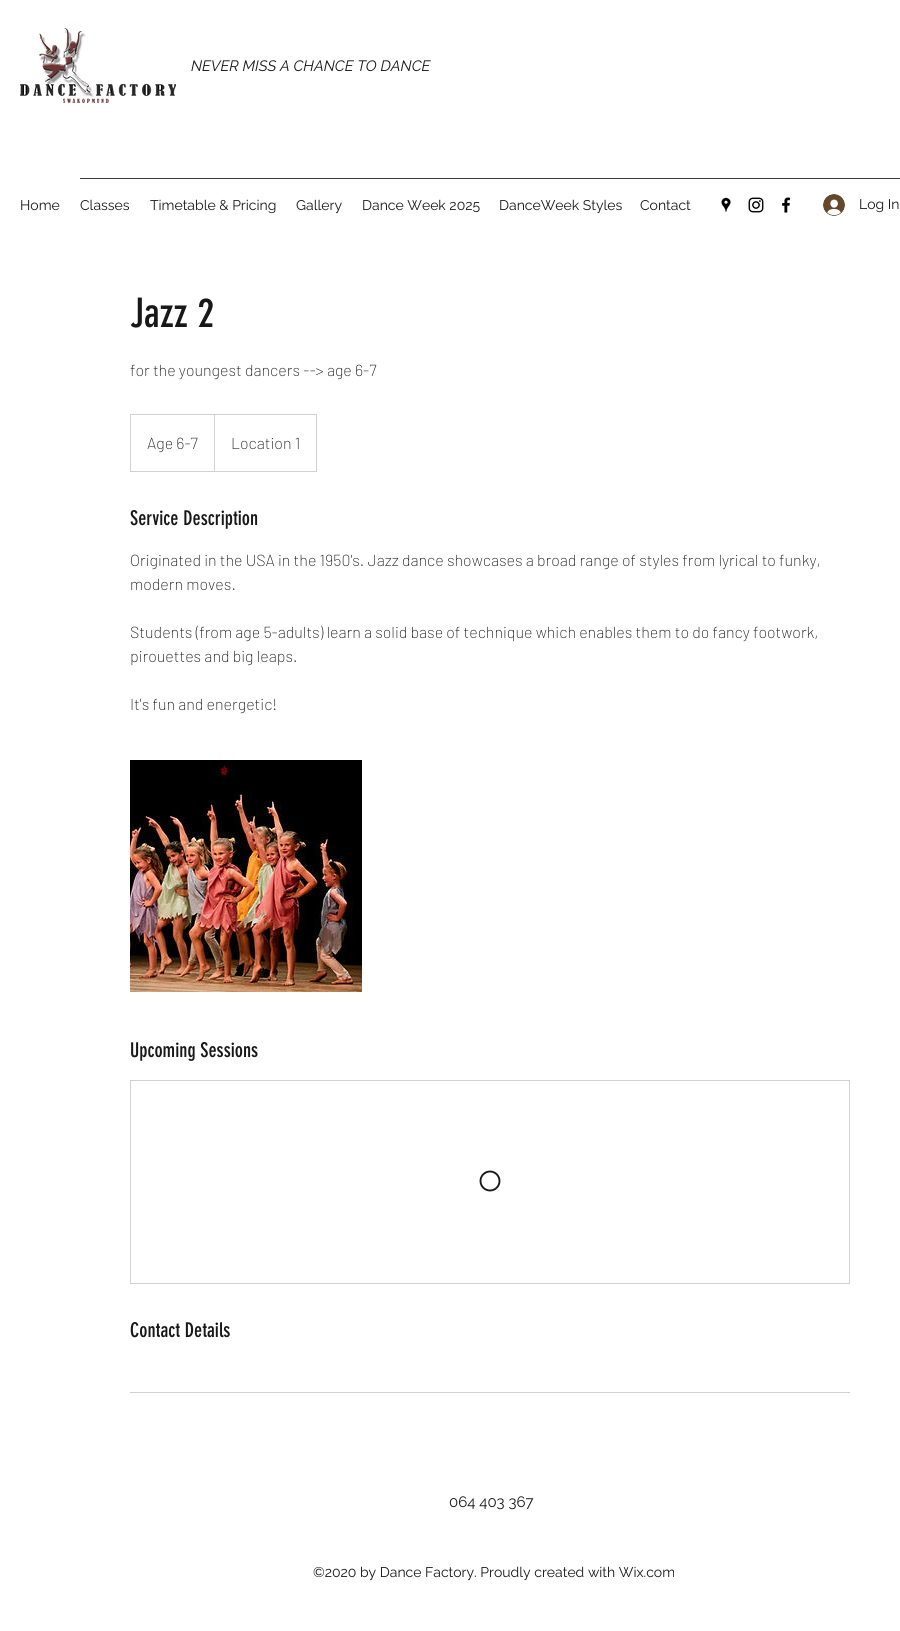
#include <cairo/cairo.h>
#include <math.h>
#include <stddef.h>

typedef struct { double x, y; const char *s; } line_t;
static cairo_t *cr;

static void rgb(unsigned color)
{
	cairo_set_source_rgb(cr, (color >> 16) / 255.0, (color >> 8 & 255) / 255.0, (color & 255) / 255.0);
}

static void image(const char *path, double x, double y, double w, double h)
{
	cairo_surface_t *image = cairo_image_surface_create_from_png(path);
	cairo_save(cr);
	cairo_set_source_surface(cr, image, x, y);
	cairo_rectangle(cr, x, y, w, h);
	cairo_fill(cr);
	cairo_restore(cr);
	cairo_surface_destroy(image);
}

int main(void) {
	cairo_surface_t *surface = cairo_image_surface_create(CAIRO_FORMAT_RGB24, 900, 1631);
	cr = cairo_create(surface);
	cairo_font_options_t *options = cairo_font_options_create();
	cairo_font_options_set_hint_metrics(options, CAIRO_HINT_METRICS_OFF);
	cairo_font_options_set_hint_style(options, CAIRO_HINT_STYLE_NONE);
	cairo_set_font_options(cr, options);
	cairo_set_miter_limit(cr, 4);
	rgb(0xffffff);
	cairo_paint(cr);
	image("img/1.png", 20, 28, 156, 75);
	rgb(0x3b3b3b);
	cairo_rectangle(cr, 80, 178, 820, 1);
	cairo_fill(cr);
	image("img/2.png", 721, 197, 10, 15);
	image("img/3.png", 748, 197, 16, 16);
	image("img/4.png", 782, 197, 9, 16);
	image("img/5.png", 823, 194, 22, 22);
	cairo_rectangle(cr, 130.5, 414.5, 186, 57);
	rgb(0xd1d1d1);
	cairo_set_line_width(cr, 1);
	cairo_stroke(cr);
	cairo_new_path(cr);
	cairo_move_to(cr, 214, 471);
	cairo_line_to(cr, 214, 414);
	cairo_line_to(cr, 215, 415);
	cairo_line_to(cr, 215, 471);
	cairo_close_path(cr);
	cairo_fill(cr);
	image("img/6.png", 130, 760, 232, 232);
	cairo_rectangle(cr, 130.5, 1080.5, 719, 203);
	cairo_stroke(cr);
	cairo_arc(cr, 490, 1181, 9.5, 0, 2 * M_PI);
	rgb(0x181818);
	cairo_set_line_width(cr, 1.9);
	cairo_stroke(cr);
	rgb(0xd1d1d1);
	cairo_rectangle(cr, 130, 1392, 720, 1);
	cairo_fill(cr);
	cairo_select_font_face(cr, "Raleway", CAIRO_FONT_SLANT_ITALIC, CAIRO_FONT_WEIGHT_NORMAL);
	cairo_set_font_size(cr, 15);
	rgb(0x181818);
	cairo_move_to(cr, 191, 71);
	cairo_show_text(cr, "NEVER MISS A CHANCE TO DANCE");
	cairo_select_font_face(cr, "Raleway", CAIRO_FONT_SLANT_NORMAL, CAIRO_FONT_WEIGHT_NORMAL);
	cairo_set_font_size(cr, 14);
	{
		static const line_t items[] = {
			{20, 210, "Home"},
			{80, 210, "Classes"},
			{150, 210, "Timetable & Pricing"},
			{296, 210, "Gallery"},
			{362, 210, "Dance Week 2025"},
			{499, 210, "DanceWeek Styles"},
			{640, 210, "Contact"},
			{859, 209, "Log In"},
		};
		for (size_t i = 0; i < sizeof items / sizeof *items; i++) {
			cairo_move_to(cr, items[i].x, items[i].y);
			cairo_show_text(cr, items[i].s);
		}
	}
	cairo_select_font_face(cr, "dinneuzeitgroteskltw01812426", CAIRO_FONT_SLANT_NORMAL, CAIRO_FONT_WEIGHT_NORMAL);
	cairo_set_font_size(cr, 40);
	cairo_move_to(cr, 130, 327);
	cairo_show_text(cr, "Jazz 2");
	cairo_select_font_face(cr, "Barlow ExtraLight", CAIRO_FONT_SLANT_NORMAL, CAIRO_FONT_WEIGHT_NORMAL);
	cairo_set_font_size(cr, 16);
	{
		static const line_t items[] = {
			{130, 376, "for the youngest dancers --> age 6-7"},
			{147, 449, "Age 6-7"},
			{231, 449, "Location 1"},
		};
		for (size_t i = 0; i < sizeof items / sizeof *items; i++) {
			cairo_move_to(cr, items[i].x, items[i].y);
			cairo_show_text(cr, items[i].s);
		}
	}
	cairo_select_font_face(cr, "dinneuzeitgroteskltw01812426", CAIRO_FONT_SLANT_NORMAL, CAIRO_FONT_WEIGHT_NORMAL);
	cairo_set_font_size(cr, 20);
	cairo_move_to(cr, 130, 525);
	cairo_show_text(cr, "Service Description");
	cairo_select_font_face(cr, "Barlow ExtraLight", CAIRO_FONT_SLANT_NORMAL, CAIRO_FONT_WEIGHT_NORMAL);
	cairo_set_font_size(cr, 16);
	{
		static const line_t items[] = {
			{130, 566, "Originated in the USA in the 1950's. Jazz dance showcases a broad range of styles from lyrical to funky,"},
			{130, 590, "modern moves."},
			{130, 638, "Students (from age 5-adults) learn a solid base of technique which enables them to do fancy footwork,"},
			{130, 662, "pirouettes and big leaps."},
			{130, 710, "It's fun and energetic!"},
		};
		for (size_t i = 0; i < sizeof items / sizeof *items; i++) {
			cairo_move_to(cr, items[i].x, items[i].y);
			cairo_show_text(cr, items[i].s);
		}
	}
	cairo_select_font_face(cr, "dinneuzeitgroteskltw01812426", CAIRO_FONT_SLANT_NORMAL, CAIRO_FONT_WEIGHT_NORMAL);
	cairo_set_font_size(cr, 20);
	cairo_move_to(cr, 130, 1057);
	cairo_show_text(cr, "Upcoming Sessions");
	cairo_move_to(cr, 130, 1337);
	cairo_show_text(cr, "Contact Details");
	cairo_select_font_face(cr, "Raleway", CAIRO_FONT_SLANT_NORMAL, CAIRO_FONT_WEIGHT_NORMAL);
	cairo_set_font_size(cr, 15);
	cairo_move_to(cr, 449, 1507);
	cairo_show_text(cr, "064 403 367");
	cairo_set_font_size(cr, 14);
	cairo_move_to(cr, 313, 1577);
	cairo_show_text(cr, "©2020 by Dance Factory. Proudly created with Wix.com");
	cairo_surface_write_to_png(surface, "page.png");
	cairo_font_options_destroy(options);
	cairo_destroy(cr);
	cairo_surface_destroy(surface);
	return 0;
}
